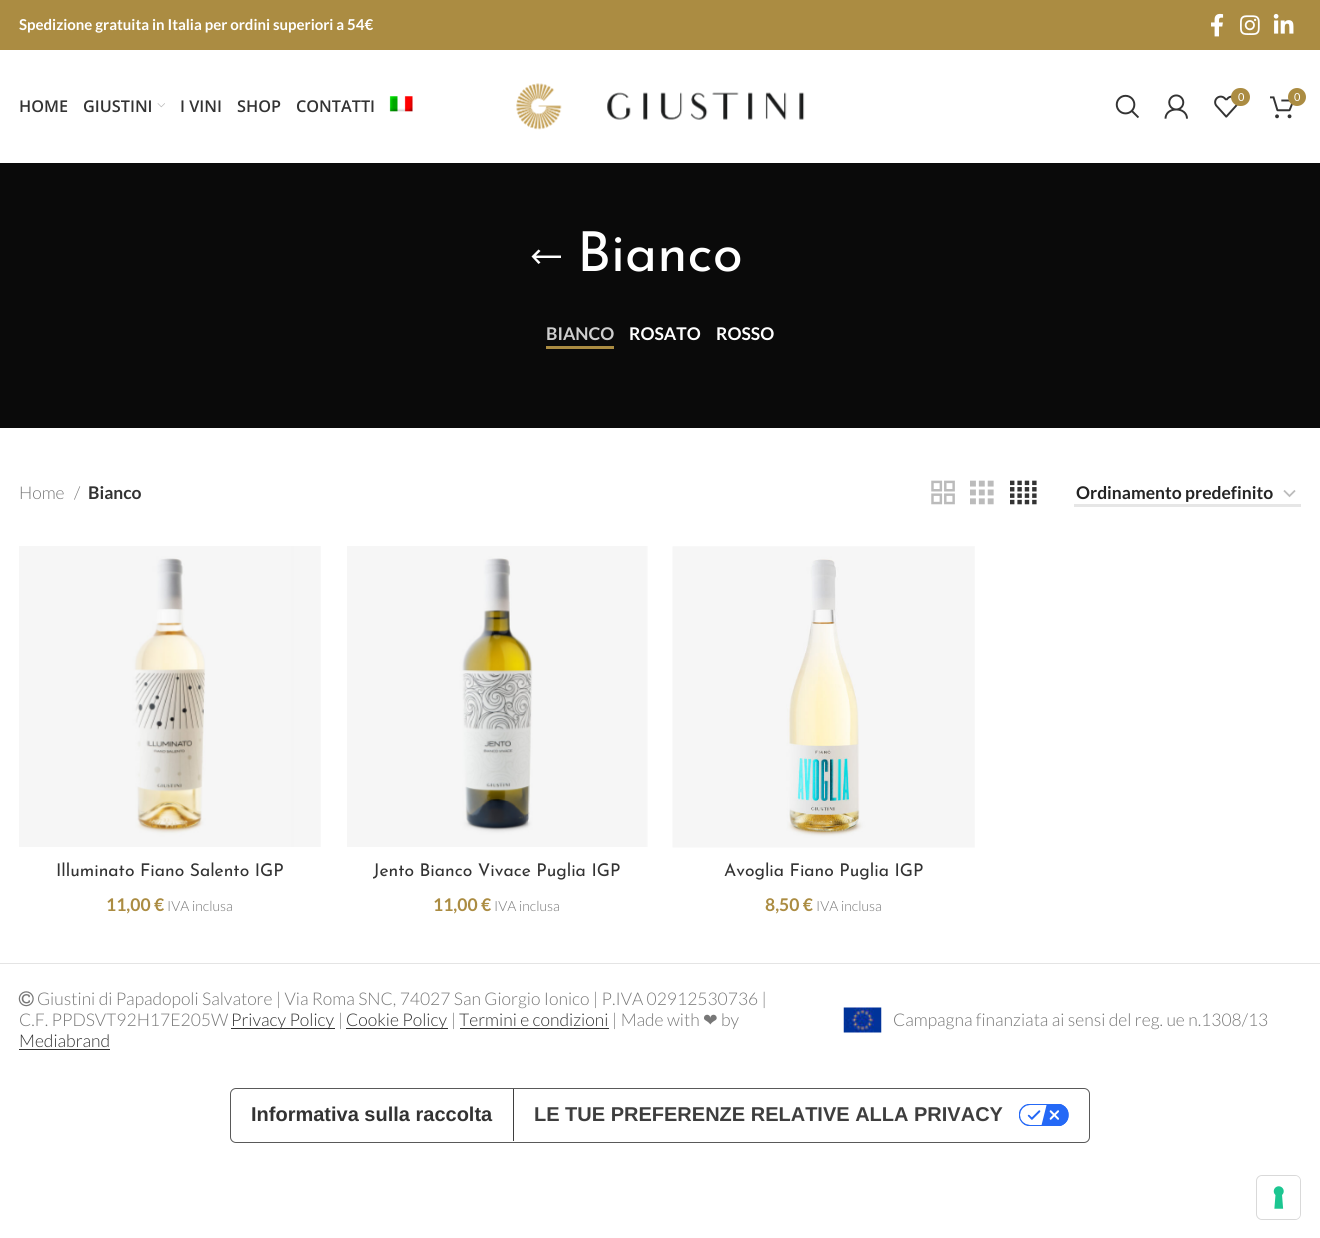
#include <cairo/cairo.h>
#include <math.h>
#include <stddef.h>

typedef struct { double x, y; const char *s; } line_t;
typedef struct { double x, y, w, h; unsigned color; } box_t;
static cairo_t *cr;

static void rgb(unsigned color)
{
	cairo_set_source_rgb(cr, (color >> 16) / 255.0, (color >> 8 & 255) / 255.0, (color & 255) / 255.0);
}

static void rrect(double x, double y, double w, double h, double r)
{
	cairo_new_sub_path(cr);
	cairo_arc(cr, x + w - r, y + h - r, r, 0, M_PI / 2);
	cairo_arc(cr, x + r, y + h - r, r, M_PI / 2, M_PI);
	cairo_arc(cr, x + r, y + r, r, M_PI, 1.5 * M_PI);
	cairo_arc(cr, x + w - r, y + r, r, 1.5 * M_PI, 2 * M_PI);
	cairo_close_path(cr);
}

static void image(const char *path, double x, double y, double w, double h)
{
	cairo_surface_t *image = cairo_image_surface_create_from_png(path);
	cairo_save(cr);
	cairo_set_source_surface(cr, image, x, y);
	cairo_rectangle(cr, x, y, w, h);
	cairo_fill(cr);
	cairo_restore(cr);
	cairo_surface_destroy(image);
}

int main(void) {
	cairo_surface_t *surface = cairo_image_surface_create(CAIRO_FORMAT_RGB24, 1320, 1238);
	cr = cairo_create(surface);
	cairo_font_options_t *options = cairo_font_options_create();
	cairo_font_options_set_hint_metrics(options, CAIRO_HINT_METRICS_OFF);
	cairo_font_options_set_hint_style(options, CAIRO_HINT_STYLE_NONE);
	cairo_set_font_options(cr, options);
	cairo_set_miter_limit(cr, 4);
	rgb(0xffffff);
	cairo_paint(cr);
	rgb(0xab8c42);
	cairo_rectangle(cr, 0, 0, 1320, 50);
	cairo_fill(cr);
	image("img/1.png", 1211, 13, 13, 24);
	image("img/2.png", 1240, 15, 20, 20);
	image("img/3.png", 1273, 13, 21, 21);
	image("img/4.png", 516, 83, 289, 47);
	image("img/5.png", 1115, 94, 24, 25);
	image("img/6.png", 1164, 94, 24, 25);
	image("img/7.png", 1214, 95, 24, 23);
	rrect(1231, 88, 19, 18, 9);
	cairo_fill(cr);
	image("img/8.png", 1270, 96, 23, 23);
	cairo_arc(cr, 1297, 97, 9, 0, 2 * M_PI);
	cairo_fill(cr);
	image("img/9.png", 157, 103, 8, 5);
	image("img/10.png", 389, 96, 24, 16);
	rgb(0x0a0a0a);
	cairo_rectangle(cr, 0, 163, 1320, 265);
	cairo_fill(cr);
	rgb(0xffffff);
	cairo_new_path(cr);
	cairo_move_to(cr, 540.5, 262.5);
	cairo_line_to(cr, 536, 258);
	cairo_line_to(cr, 561, 258);
	cairo_line_to(cr, 561, 255.5);
	cairo_line_to(cr, 536, 255.5);
	cairo_line_to(cr, 540.5, 251);
	cairo_line_to(cr, 538.5, 249.5);
	cairo_line_to(cr, 531.5, 256.5);
	cairo_line_to(cr, 538.5, 264);
	cairo_close_path(cr);
	cairo_fill(cr);
	rgb(0xab8c42);
	cairo_rectangle(cr, 546, 346, 68, 3);
	cairo_fill(cr);
	image("img/11.png", 931, 480, 24, 25);
	image("img/12.png", 970, 480, 24, 25);
	image("img/13.png", 1010, 480, 27, 25);
	cairo_new_path(cr);
	cairo_move_to(cr, 1284, 490.5);
	cairo_line_to(cr, 1289.5, 496);
	cairo_line_to(cr, 1295, 490.5);
	rgb(0xbbbbbb);
	cairo_set_line_width(cr, 1.8);
	cairo_stroke(cr);
	rgb(0xe6e6e6);
	cairo_rectangle(cr, 1074, 504, 227, 3);
	cairo_fill(cr);
	image("img/14.png", 19, 546, 302, 301);
	image("img/15.png", 347, 546, 301, 301);
	image("img/16.png", 672, 546, 303, 302);
	rgb(0xe4e4e4);
	cairo_rectangle(cr, 0, 963, 1320, 1);
	cairo_fill(cr);
	image("img/17.png", 18, 991, 16, 16);
	{
		static const box_t items[] = {
			{231, 1028, 104, 1, 0x333333},
			{346, 1028, 102, 1, 0x333333},
			{460, 1028, 149, 1, 0x333333},
			{19, 1049, 91, 1, 0x333333},
		};
		for (size_t i = 0; i < sizeof items / sizeof *items; i++) {
			rgb(items[i].color);
			cairo_rectangle(cr, items[i].x, items[i].y, items[i].w, items[i].h);
			cairo_fill(cr);
		}
	}
	image("img/18.png", 843, 1007, 39, 26);
	rrect(230.5, 1088.5, 859, 54, 5.5);
	rgb(0x595959);
	cairo_set_line_width(cr, 1);
	cairo_stroke(cr);
	rgb(0x3e3e3e);
	cairo_rectangle(cr, 513, 1089, 1, 52);
	cairo_fill(cr);
	image("img/19.png", 1019, 1104, 50, 22);
	rrect(1256.5, 1175.5, 44, 44, 5.5);
	rgb(0xd9d9d9);
	cairo_stroke(cr);
	rgb(0xffffff);
	rrect(1258, 1176, 42, 43, 5);
	cairo_fill(cr);
	image("img/20.png", 1273, 1186, 11, 23);
	cairo_select_font_face(cr, "Lato", CAIRO_FONT_SLANT_NORMAL, CAIRO_FONT_WEIGHT_BOLD);
	cairo_set_font_size(cr, 15);
	cairo_move_to(cr, 19, 30);
	cairo_show_text(cr, "Spedizione gratuita in Italia per ordini superiori a 54€");
	cairo_select_font_face(cr, "Lato", CAIRO_FONT_SLANT_NORMAL, CAIRO_FONT_WEIGHT_NORMAL);
	cairo_set_font_size(cr, 11);
	cairo_move_to(cr, 1238, 101);
	cairo_show_text(cr, "0");
	cairo_move_to(cr, 1294, 101);
	cairo_show_text(cr, "0");
	cairo_select_font_face(cr, "Open Sans SemiBold", CAIRO_FONT_SLANT_NORMAL, CAIRO_FONT_WEIGHT_NORMAL);
	cairo_set_font_size(cr, 16.25);
	rgb(0x333333);
	{
		static const line_t items[] = {
			{19, 112, "HOME"},
			{83, 112, "GIUSTINI"},
			{180, 112, "I VINI"},
			{237, 112, "SHOP"},
			{296, 112, "CONTATTI"},
		};
		for (size_t i = 0; i < sizeof items / sizeof *items; i++) {
			cairo_move_to(cr, items[i].x, items[i].y);
			cairo_show_text(cr, items[i].s);
		}
	}
	cairo_select_font_face(cr, "Josefin Sans", CAIRO_FONT_SLANT_NORMAL, CAIRO_FONT_WEIGHT_NORMAL);
	cairo_set_font_size(cr, 55);
	rgb(0xffffff);
	cairo_move_to(cr, 577, 271);
	cairo_show_text(cr, "Bianco");
	cairo_select_font_face(cr, "Lato", CAIRO_FONT_SLANT_NORMAL, CAIRO_FONT_WEIGHT_BOLD);
	cairo_set_font_size(cr, 17.5);
	rgb(0xcecece);
	cairo_move_to(cr, 546, 340);
	cairo_show_text(cr, "BIANCO");
	rgb(0xffffff);
	cairo_move_to(cr, 629, 340);
	cairo_show_text(cr, "ROSATO");
	cairo_move_to(cr, 716, 340);
	cairo_show_text(cr, "ROSSO");
	cairo_select_font_face(cr, "Lato Light", CAIRO_FONT_SLANT_NORMAL, CAIRO_FONT_WEIGHT_NORMAL);
	rgb(0x777777);
	cairo_move_to(cr, 19, 499);
	cairo_show_text(cr, "Home");
	cairo_move_to(cr, 74, 499);
	cairo_show_text(cr, "/");
	cairo_select_font_face(cr, "Lato", CAIRO_FONT_SLANT_NORMAL, CAIRO_FONT_WEIGHT_BOLD);
	rgb(0x333333);
	cairo_move_to(cr, 88, 499);
	cairo_show_text(cr, "Bianco");
	rgb(0x242424);
	cairo_move_to(cr, 1076, 499);
	cairo_show_text(cr, "Ordinamento predefinito");
	cairo_select_font_face(cr, "Josefin Sans", CAIRO_FONT_SLANT_NORMAL, CAIRO_FONT_WEIGHT_NORMAL);
	rgb(0x333333);
	cairo_move_to(cr, 56, 876);
	cairo_show_text(cr, "Illuminato Fiano Salento IGP");
	cairo_select_font_face(cr, "Lato", CAIRO_FONT_SLANT_NORMAL, CAIRO_FONT_WEIGHT_BOLD);
	rgb(0xab8c42);
	cairo_move_to(cr, 106, 911);
	cairo_show_text(cr, "11,00 €");
	cairo_select_font_face(cr, "Lato Light", CAIRO_FONT_SLANT_NORMAL, CAIRO_FONT_WEIGHT_NORMAL);
	cairo_set_font_size(cr, 14);
	rgb(0x777777);
	cairo_move_to(cr, 167, 911);
	cairo_show_text(cr, "IVA inclusa");
	cairo_select_font_face(cr, "Josefin Sans", CAIRO_FONT_SLANT_NORMAL, CAIRO_FONT_WEIGHT_NORMAL);
	cairo_set_font_size(cr, 17.5);
	rgb(0x333333);
	cairo_move_to(cr, 373, 876);
	cairo_show_text(cr, "Jento Bianco Vivace Puglia IGP");
	cairo_select_font_face(cr, "Lato", CAIRO_FONT_SLANT_NORMAL, CAIRO_FONT_WEIGHT_BOLD);
	rgb(0xab8c42);
	cairo_move_to(cr, 433, 911);
	cairo_show_text(cr, "11,00 €");
	cairo_select_font_face(cr, "Lato Light", CAIRO_FONT_SLANT_NORMAL, CAIRO_FONT_WEIGHT_NORMAL);
	cairo_set_font_size(cr, 14);
	rgb(0x777777);
	cairo_move_to(cr, 494, 911);
	cairo_show_text(cr, "IVA inclusa");
	cairo_select_font_face(cr, "Josefin Sans", CAIRO_FONT_SLANT_NORMAL, CAIRO_FONT_WEIGHT_NORMAL);
	cairo_set_font_size(cr, 17.5);
	rgb(0x333333);
	cairo_move_to(cr, 724, 876);
	cairo_show_text(cr, "Avoglia Fiano Puglia IGP");
	cairo_select_font_face(cr, "Lato", CAIRO_FONT_SLANT_NORMAL, CAIRO_FONT_WEIGHT_BOLD);
	rgb(0xab8c42);
	cairo_move_to(cr, 765, 911);
	cairo_show_text(cr, "8,50 €");
	cairo_select_font_face(cr, "Lato Light", CAIRO_FONT_SLANT_NORMAL, CAIRO_FONT_WEIGHT_NORMAL);
	cairo_set_font_size(cr, 14);
	rgb(0x777777);
	cairo_move_to(cr, 816, 911);
	cairo_show_text(cr, "IVA inclusa");
	cairo_set_font_size(cr, 17.5);
	cairo_move_to(cr, 37, 1005);
	cairo_show_text(cr, "Giustini di Papadopoli Salvatore | Via Roma SNC, 74027 San Giorgio Ionico | P.IVA 02912530736 |");
	cairo_move_to(cr, 19, 1026);
	cairo_show_text(cr, "C.F. PPDSVT92H17E205W");
	rgb(0x333333);
	cairo_move_to(cr, 231, 1026);
	cairo_show_text(cr, "Privacy Policy");
	rgb(0x777777);
	cairo_move_to(cr, 338, 1026);
	cairo_show_text(cr, "|");
	rgb(0x333333);
	cairo_move_to(cr, 346, 1026);
	cairo_show_text(cr, "Cookie Policy");
	rgb(0x777777);
	cairo_move_to(cr, 451, 1026);
	cairo_show_text(cr, "|");
	rgb(0x333333);
	cairo_move_to(cr, 459, 1026);
	cairo_show_text(cr, "Termini e condizioni");
	rgb(0x777777);
	cairo_move_to(cr, 612, 1026);
	cairo_show_text(cr, "| Made with");
	cairo_select_font_face(cr, "DejaVu Sans", CAIRO_FONT_SLANT_NORMAL, CAIRO_FONT_WEIGHT_NORMAL);
	cairo_move_to(cr, 703, 1026);
	cairo_show_text(cr, "❤");
	cairo_select_font_face(cr, "Lato Light", CAIRO_FONT_SLANT_NORMAL, CAIRO_FONT_WEIGHT_NORMAL);
	cairo_move_to(cr, 721, 1026);
	cairo_show_text(cr, "by");
	rgb(0x333333);
	cairo_move_to(cr, 19, 1047);
	cairo_show_text(cr, "Mediabrand");
	rgb(0x777777);
	cairo_move_to(cr, 893, 1026);
	cairo_show_text(cr, "Campagna finanziata ai sensi del reg. ue n.1308/13");
	cairo_select_font_face(cr, "Liberation Sans", CAIRO_FONT_SLANT_NORMAL, CAIRO_FONT_WEIGHT_BOLD);
	cairo_set_font_size(cr, 20);
	rgb(0x333333);
	cairo_move_to(cr, 251, 1121);
	cairo_show_text(cr, "Informativa sulla raccolta");
	rgb(0x3e3e3e);
	cairo_move_to(cr, 534, 1121);
	cairo_show_text(cr, "LE TUE PREFERENZE RELATIVE ALLA PRIVACY");
	cairo_surface_write_to_png(surface, "page.png");
	cairo_font_options_destroy(options);
	cairo_destroy(cr);
	cairo_surface_destroy(surface);
	return 0;
}
